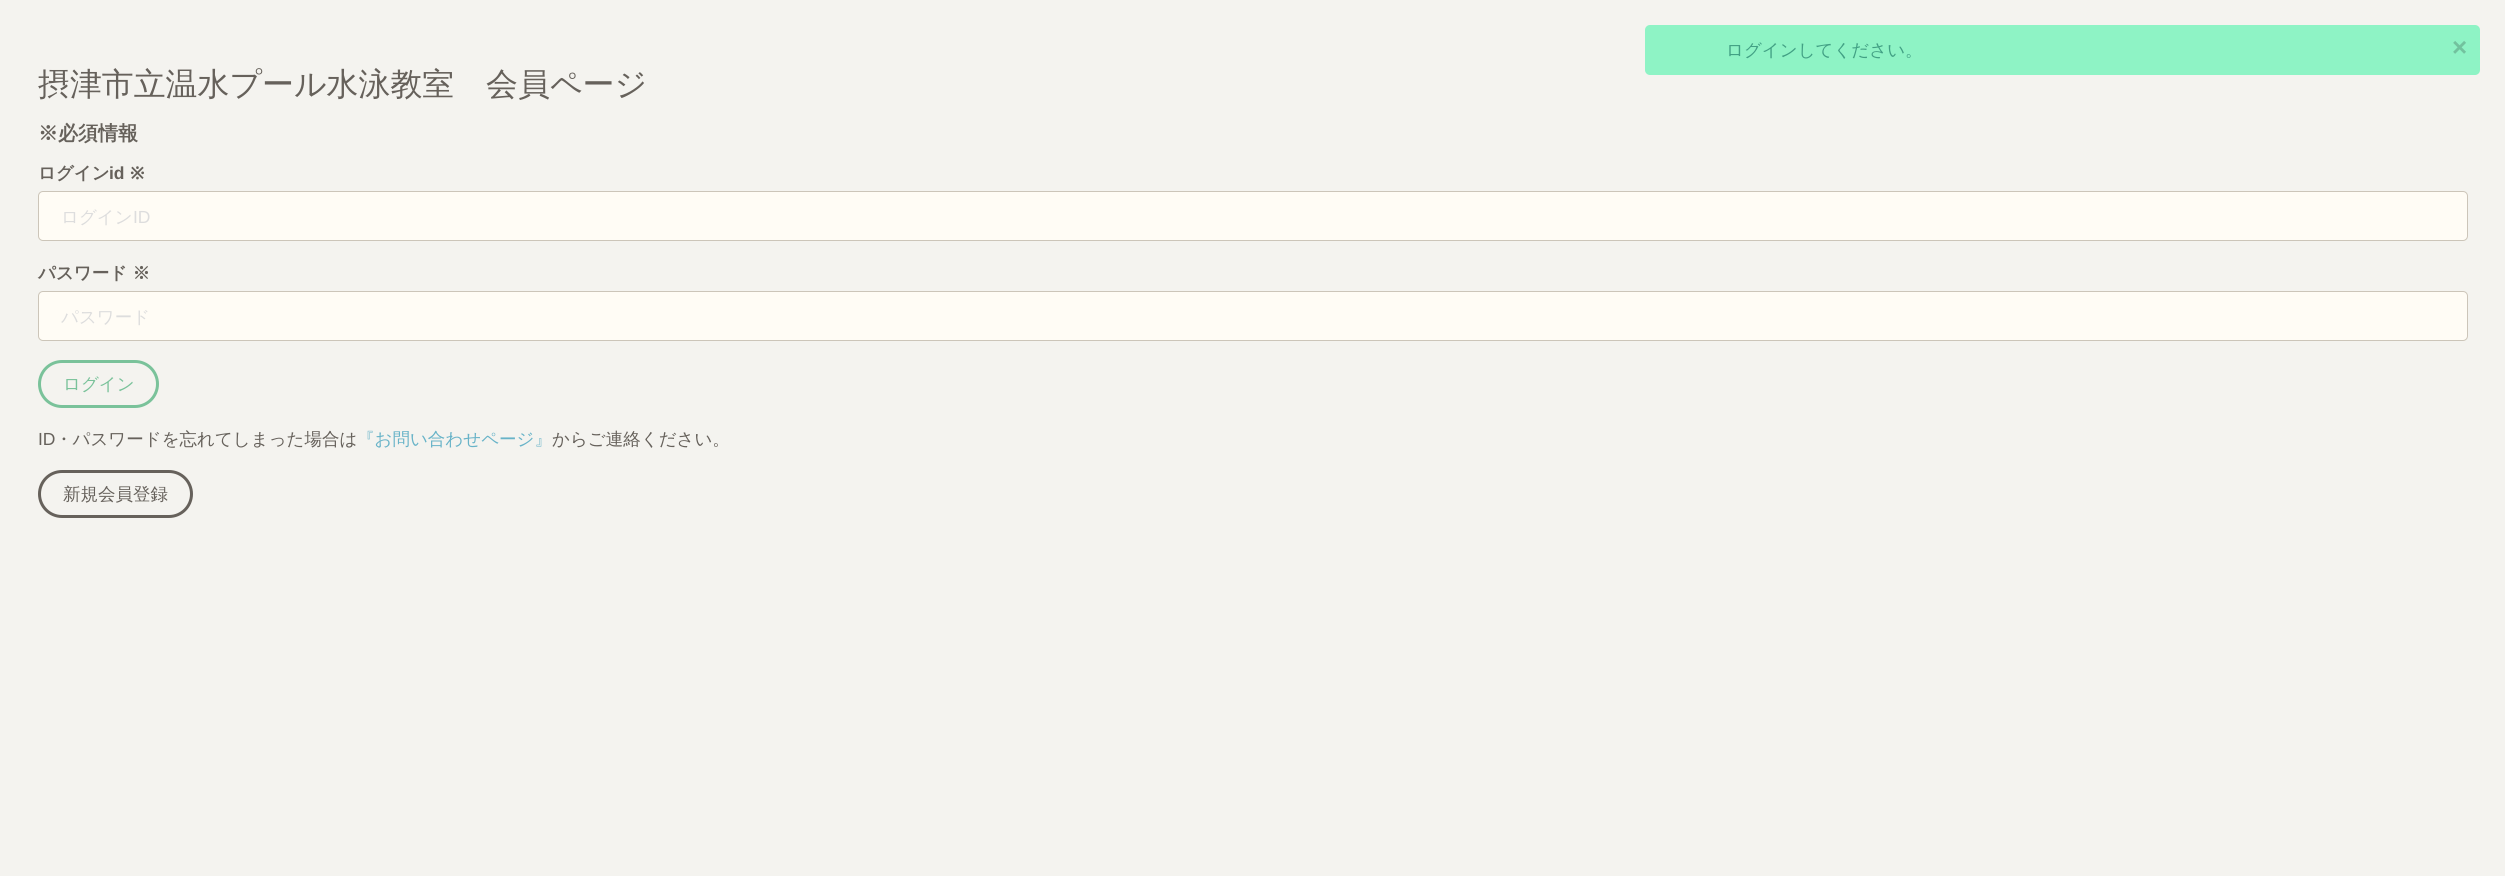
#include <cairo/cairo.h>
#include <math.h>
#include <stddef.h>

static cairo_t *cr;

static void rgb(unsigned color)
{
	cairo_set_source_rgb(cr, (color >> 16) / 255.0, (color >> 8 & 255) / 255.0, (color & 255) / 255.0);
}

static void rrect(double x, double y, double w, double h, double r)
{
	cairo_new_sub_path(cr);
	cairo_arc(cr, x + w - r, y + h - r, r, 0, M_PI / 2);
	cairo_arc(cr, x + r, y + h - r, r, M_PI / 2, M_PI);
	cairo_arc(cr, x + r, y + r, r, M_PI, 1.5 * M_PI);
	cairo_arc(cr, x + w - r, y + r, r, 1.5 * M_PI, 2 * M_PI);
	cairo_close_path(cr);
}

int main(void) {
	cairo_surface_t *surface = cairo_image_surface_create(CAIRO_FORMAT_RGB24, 2505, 876);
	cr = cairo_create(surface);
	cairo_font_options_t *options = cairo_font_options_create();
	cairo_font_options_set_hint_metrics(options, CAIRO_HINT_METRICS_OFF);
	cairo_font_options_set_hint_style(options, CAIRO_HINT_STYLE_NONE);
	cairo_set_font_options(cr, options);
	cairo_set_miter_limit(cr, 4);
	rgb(0xf4f3ef);
	cairo_paint(cr);
	rgb(0x8ef3c5);
	rrect(1645, 25, 835, 50, 5);
	cairo_fill(cr);
	rgb(0xfffcf5);
	rrect(38.5, 191.5, 2429, 49, 4.5);
	cairo_fill_preserve(cr);
	rgb(0xccc5b9);
	cairo_set_line_width(cr, 1);
	cairo_stroke(cr);
	rgb(0xfffcf5);
	rrect(38.5, 291.5, 2429, 49, 4.5);
	cairo_fill_preserve(cr);
	rgb(0xccc5b9);
	cairo_stroke(cr);
	rrect(39.5, 361.5, 118, 45, 22.5);
	rgb(0x7ac29a);
	cairo_set_line_width(cr, 3);
	cairo_stroke(cr);
	rrect(39.5, 471.5, 152, 45, 22.5);
	rgb(0x66615b);
	cairo_stroke(cr);
	cairo_select_font_face(cr, "WenQuanYi Zen Hei Medium", CAIRO_FONT_SLANT_NORMAL, CAIRO_FONT_WEIGHT_NORMAL);
	cairo_set_font_size(cr, 17.5);
	rgb(0x42a084);
	cairo_move_to(cr, 1726, 56);
	cairo_show_text(cr, "ログインしてください。");
	cairo_select_font_face(cr, "Liberation Sans", CAIRO_FONT_SLANT_NORMAL, CAIRO_FONT_WEIGHT_BOLD);
	cairo_set_font_size(cr, 26);
	rgb(0x72c29e);
	cairo_move_to(cr, 2452, 56);
	cairo_show_text(cr, "×");
	cairo_select_font_face(cr, "WenQuanYi Zen Hei Medium", CAIRO_FONT_SLANT_NORMAL, CAIRO_FONT_WEIGHT_NORMAL);
	cairo_set_font_size(cr, 31.9);
	rgb(0x66615b);
	cairo_move_to(cr, 38, 95);
	cairo_show_text(cr, "摂津市立温水プール水泳教室　会員ページ");
	cairo_select_font_face(cr, "WenQuanYi Zen Hei", CAIRO_FONT_SLANT_NORMAL, CAIRO_FONT_WEIGHT_BOLD);
	cairo_set_font_size(cr, 20);
	cairo_move_to(cr, 38, 140);
	cairo_show_text(cr, "※必須情報");
	cairo_set_font_size(cr, 17.5);
	cairo_move_to(cr, 38, 179);
	cairo_show_text(cr, "ログイン");
	cairo_select_font_face(cr, "Liberation Sans", CAIRO_FONT_SLANT_NORMAL, CAIRO_FONT_WEIGHT_BOLD);
	cairo_move_to(cr, 109, 179);
	cairo_show_text(cr, "id");
	cairo_select_font_face(cr, "Noto Sans", CAIRO_FONT_SLANT_NORMAL, CAIRO_FONT_WEIGHT_BOLD);
	cairo_move_to(cr, 130, 179);
	cairo_show_text(cr, "※");
	cairo_select_font_face(cr, "WenQuanYi Zen Hei Medium", CAIRO_FONT_SLANT_NORMAL, CAIRO_FONT_WEIGHT_NORMAL);
	rgb(0xdddddd);
	cairo_move_to(cr, 61, 223);
	cairo_show_text(cr, "ログイン");
	cairo_select_font_face(cr, "Liberation Sans", CAIRO_FONT_SLANT_NORMAL, CAIRO_FONT_WEIGHT_NORMAL);
	cairo_move_to(cr, 133, 223);
	cairo_show_text(cr, "ID");
	cairo_select_font_face(cr, "WenQuanYi Zen Hei", CAIRO_FONT_SLANT_NORMAL, CAIRO_FONT_WEIGHT_BOLD);
	rgb(0x66615b);
	cairo_move_to(cr, 38, 279);
	cairo_show_text(cr, "パスワード ※");
	cairo_select_font_face(cr, "WenQuanYi Zen Hei Medium", CAIRO_FONT_SLANT_NORMAL, CAIRO_FONT_WEIGHT_NORMAL);
	rgb(0xdddddd);
	cairo_move_to(cr, 61, 323);
	cairo_show_text(cr, "パスワード");
	rgb(0x7ac29a);
	cairo_move_to(cr, 63, 390);
	cairo_show_text(cr, "ログイン");
	cairo_select_font_face(cr, "Liberation Sans", CAIRO_FONT_SLANT_NORMAL, CAIRO_FONT_WEIGHT_NORMAL);
	rgb(0x66615b);
	cairo_move_to(cr, 38, 445);
	cairo_show_text(cr, "ID");
	cairo_select_font_face(cr, "WenQuanYi Zen Hei Medium", CAIRO_FONT_SLANT_NORMAL, CAIRO_FONT_WEIGHT_NORMAL);
	cairo_move_to(cr, 55, 445);
	cairo_show_text(cr, "・パスワードを忘れてしまった場合は");
	rgb(0x68b3c8);
	cairo_move_to(cr, 357, 445);
	cairo_show_text(cr, "『お問い合わせページ』");
	rgb(0x66615b);
	cairo_move_to(cr, 552, 445);
	cairo_show_text(cr, "からご連絡ください。");
	cairo_move_to(cr, 63, 500);
	cairo_show_text(cr, "新規会員登録");
	cairo_surface_write_to_png(surface, "page.png");
	cairo_font_options_destroy(options);
	cairo_destroy(cr);
	cairo_surface_destroy(surface);
	return 0;
}
